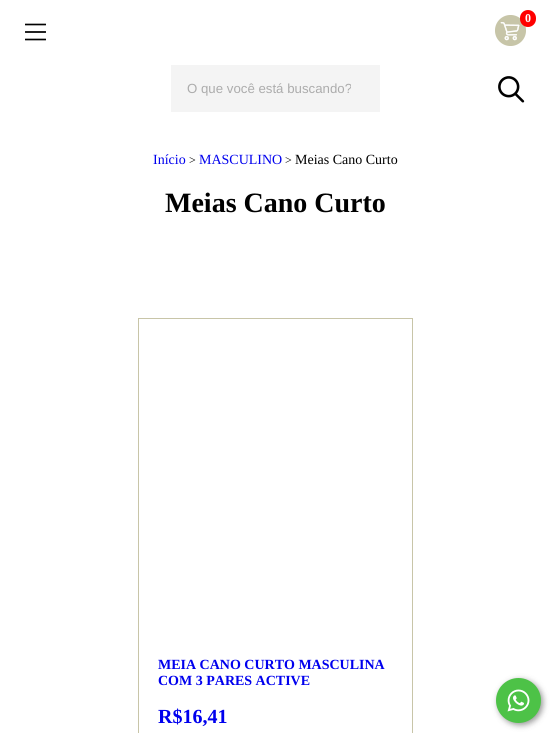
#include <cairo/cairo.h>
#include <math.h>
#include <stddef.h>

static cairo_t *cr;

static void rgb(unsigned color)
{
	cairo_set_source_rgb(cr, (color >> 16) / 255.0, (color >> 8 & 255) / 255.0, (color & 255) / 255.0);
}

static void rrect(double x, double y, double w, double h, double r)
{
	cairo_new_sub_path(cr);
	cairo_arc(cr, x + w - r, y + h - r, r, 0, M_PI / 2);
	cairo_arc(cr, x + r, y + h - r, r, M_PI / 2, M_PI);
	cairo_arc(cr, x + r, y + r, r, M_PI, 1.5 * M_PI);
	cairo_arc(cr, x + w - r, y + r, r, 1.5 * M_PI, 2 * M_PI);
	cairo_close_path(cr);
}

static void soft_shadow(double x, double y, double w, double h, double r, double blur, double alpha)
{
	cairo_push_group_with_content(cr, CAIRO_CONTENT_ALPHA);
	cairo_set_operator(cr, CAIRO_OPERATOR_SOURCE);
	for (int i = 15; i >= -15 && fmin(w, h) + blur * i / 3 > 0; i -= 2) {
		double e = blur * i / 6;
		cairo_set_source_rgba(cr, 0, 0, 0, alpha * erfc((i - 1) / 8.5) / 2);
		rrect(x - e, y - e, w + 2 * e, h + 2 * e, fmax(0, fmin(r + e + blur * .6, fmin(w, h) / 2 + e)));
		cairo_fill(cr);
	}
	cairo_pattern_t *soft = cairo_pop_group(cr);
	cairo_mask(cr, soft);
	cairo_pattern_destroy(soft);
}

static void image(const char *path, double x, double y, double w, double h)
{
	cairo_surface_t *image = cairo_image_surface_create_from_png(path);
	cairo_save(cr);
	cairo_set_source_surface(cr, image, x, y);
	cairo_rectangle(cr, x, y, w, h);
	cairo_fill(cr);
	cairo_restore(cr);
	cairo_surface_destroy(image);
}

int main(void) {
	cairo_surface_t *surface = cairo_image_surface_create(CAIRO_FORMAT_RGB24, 551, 733);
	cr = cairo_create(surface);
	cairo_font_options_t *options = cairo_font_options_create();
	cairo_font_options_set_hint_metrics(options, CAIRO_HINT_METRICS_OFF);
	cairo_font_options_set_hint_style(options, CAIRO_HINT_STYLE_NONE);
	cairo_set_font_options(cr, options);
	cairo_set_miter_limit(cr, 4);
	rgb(0xffffff);
	cairo_paint(cr);
	image("img/1.png", 495, 15, 31, 31);
	rgb(0xff0000);
	rrect(520, 10, 16, 17, 8);
	cairo_fill(cr);
	image("img/2.png", 25, 23, 21, 18);
	rgb(0xf4f4f4);
	cairo_rectangle(cr, 171, 65, 209, 47);
	cairo_fill(cr);
	image("img/3.png", 498, 76, 27, 27);
	cairo_rectangle(cr, 138.5, 318.5, 274, 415);
	rgb(0xc8c5a8);
	cairo_set_line_width(cr, 1);
	cairo_stroke(cr);
	rgb(0x000000);
	soft_shadow(498, 680, 45, 45, 22.5, 3, 0.4);
	rgb(0x4dc247);
	cairo_arc(cr, 518.5, 700.5, 22.5, 0, 2 * M_PI);
	cairo_fill(cr);
	image("img/4.png", 507, 689, 23, 23);
	cairo_select_font_face(cr, "Liberation Serif", CAIRO_FONT_SLANT_NORMAL, CAIRO_FONT_WEIGHT_BOLD);
	cairo_set_font_size(cr, 12);
	rgb(0xffffff);
	cairo_move_to(cr, 525, 22);
	cairo_show_text(cr, "0");
	cairo_save(cr);
	cairo_rectangle(cr, 187, 81, 164, 15);
	cairo_clip(cr);
	cairo_select_font_face(cr, "Liberation Sans", CAIRO_FONT_SLANT_NORMAL, CAIRO_FONT_WEIGHT_NORMAL);
	cairo_set_font_size(cr, 13.25);
	rgb(0xacacac);
	cairo_move_to(cr, 187, 93);
	cairo_show_text(cr, "O que você está buscando?");
	cairo_restore(cr);
	cairo_select_font_face(cr, "Liberation Serif", CAIRO_FONT_SLANT_NORMAL, CAIRO_FONT_WEIGHT_NORMAL);
	cairo_set_font_size(cr, 14);
	rgb(0x0000ee);
	cairo_move_to(cr, 153, 164);
	cairo_show_text(cr, "Início");
	cairo_set_font_size(cr, 12);
	rgb(0x000000);
	cairo_move_to(cr, 189, 164);
	cairo_show_text(cr, ">");
	cairo_set_font_size(cr, 14);
	rgb(0x0000ee);
	cairo_move_to(cr, 199, 164);
	cairo_show_text(cr, "MASCULINO");
	cairo_set_font_size(cr, 12);
	rgb(0x000000);
	cairo_move_to(cr, 285, 164);
	cairo_show_text(cr, ">");
	cairo_set_font_size(cr, 14);
	cairo_move_to(cr, 295, 164);
	cairo_show_text(cr, "Meias Cano Curto");
	cairo_select_font_face(cr, "Liberation Serif", CAIRO_FONT_SLANT_NORMAL, CAIRO_FONT_WEIGHT_BOLD);
	cairo_set_font_size(cr, 28);
	cairo_move_to(cr, 165, 212);
	cairo_show_text(cr, "Meias Cano Curto");
	cairo_set_font_size(cr, 14);
	rgb(0x0000ee);
	cairo_move_to(cr, 158, 669);
	cairo_show_text(cr, "MEIA CANO CURTO MASCULINA");
	cairo_move_to(cr, 158, 685);
	cairo_show_text(cr, "COM 3 PARES ACTIVE");
	cairo_set_font_size(cr, 20);
	cairo_move_to(cr, 158, 723);
	cairo_show_text(cr, "R$16,41");
	cairo_surface_write_to_png(surface, "page.png");
	cairo_font_options_destroy(options);
	cairo_destroy(cr);
	cairo_surface_destroy(surface);
	return 0;
}
